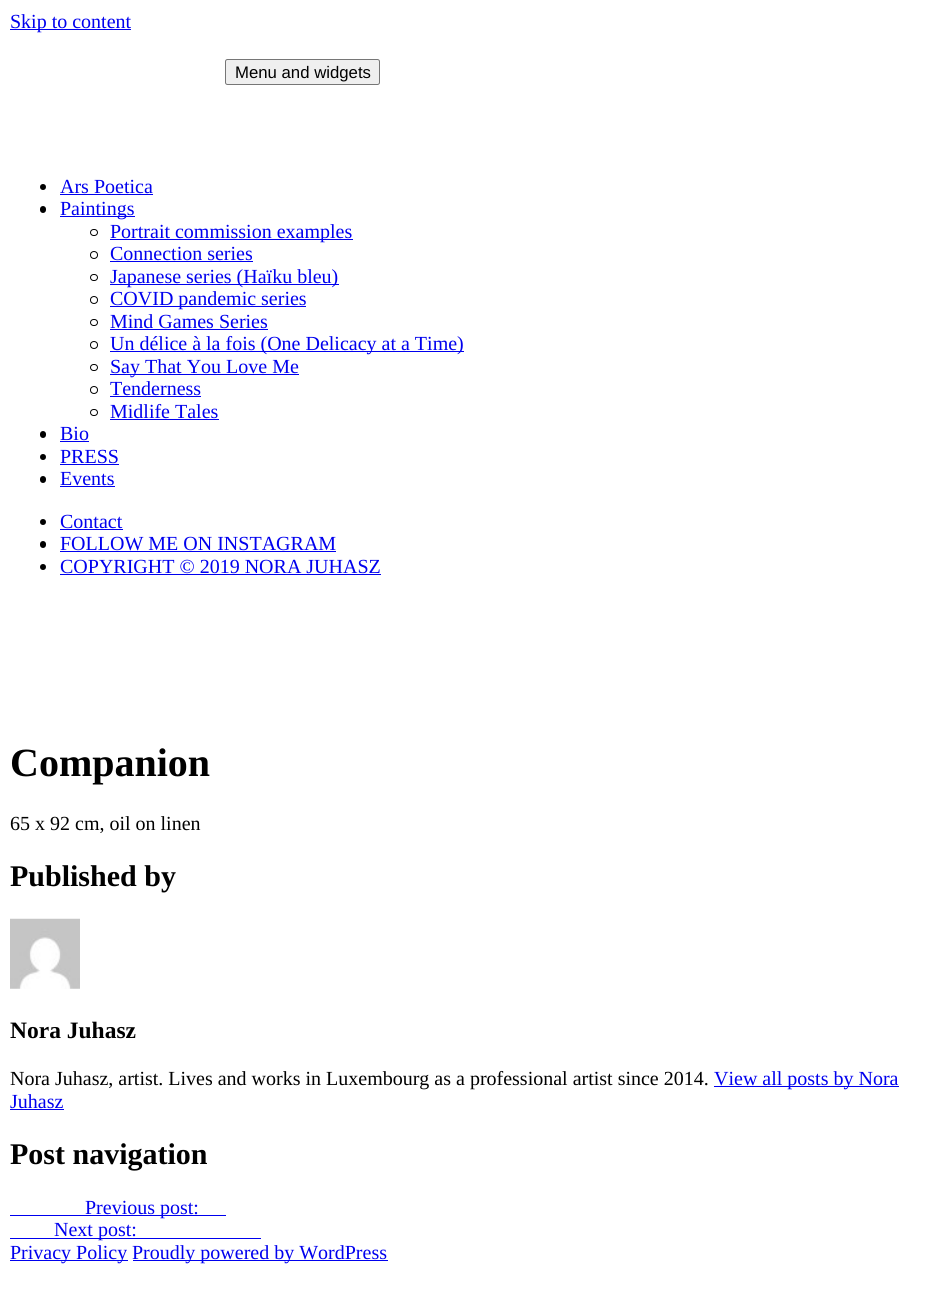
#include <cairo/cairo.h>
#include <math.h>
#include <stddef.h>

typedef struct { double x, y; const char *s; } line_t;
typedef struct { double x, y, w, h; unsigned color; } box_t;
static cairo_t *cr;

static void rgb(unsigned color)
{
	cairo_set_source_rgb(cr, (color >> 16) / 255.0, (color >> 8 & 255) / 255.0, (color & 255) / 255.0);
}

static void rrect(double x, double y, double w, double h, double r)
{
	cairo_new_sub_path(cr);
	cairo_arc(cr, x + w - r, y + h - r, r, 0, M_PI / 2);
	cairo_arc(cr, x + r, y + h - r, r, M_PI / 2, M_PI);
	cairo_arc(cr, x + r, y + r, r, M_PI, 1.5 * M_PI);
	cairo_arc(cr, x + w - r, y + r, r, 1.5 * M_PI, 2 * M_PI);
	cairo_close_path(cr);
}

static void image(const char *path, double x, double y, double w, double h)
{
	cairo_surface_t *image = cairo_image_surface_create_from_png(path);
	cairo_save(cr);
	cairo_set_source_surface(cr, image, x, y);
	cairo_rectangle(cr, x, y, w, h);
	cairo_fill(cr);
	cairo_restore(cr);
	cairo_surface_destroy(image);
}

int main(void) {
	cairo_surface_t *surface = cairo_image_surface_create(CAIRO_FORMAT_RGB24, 942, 1291);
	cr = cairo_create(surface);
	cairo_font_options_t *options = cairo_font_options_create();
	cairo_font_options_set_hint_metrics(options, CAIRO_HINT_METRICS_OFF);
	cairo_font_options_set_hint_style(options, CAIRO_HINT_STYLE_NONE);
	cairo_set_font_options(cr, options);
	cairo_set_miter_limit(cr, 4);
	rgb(0xffffff);
	cairo_paint(cr);
	rgb(0x0000ee);
	cairo_rectangle(cr, 10, 29, 121, 1);
	cairo_fill(cr);
	rgb(0xefefef);
	rrect(225.5, 59.5, 154, 25, 2);
	cairo_fill_preserve(cr);
	rgb(0x767676);
	cairo_set_line_width(cr, 1);
	cairo_stroke(cr);
	rgb(0x000000);
	cairo_arc(cr, 43, 187, 3, 0, 2 * M_PI);
	cairo_fill(cr);
	rgb(0x0000ee);
	cairo_rectangle(cr, 60, 194, 93, 1);
	cairo_fill(cr);
	rgb(0x000000);
	rrect(40, 206, 6, 7, 3);
	cairo_fill(cr);
	rgb(0x0000ee);
	cairo_rectangle(cr, 60, 216, 75, 1);
	cairo_fill(cr);
	rrect(90.5, 229.5, 7, 6, 3);
	rgb(0x000000);
	cairo_stroke(cr);
	rgb(0x0000ee);
	cairo_rectangle(cr, 110, 239, 243, 1);
	cairo_fill(cr);
	cairo_arc(cr, 94, 255, 3.5, 0, 2 * M_PI);
	rgb(0x000000);
	cairo_stroke(cr);
	rgb(0x0000ee);
	cairo_rectangle(cr, 110, 261, 143, 1);
	cairo_fill(cr);
	rrect(90.5, 274.5, 7, 6, 3);
	rgb(0x000000);
	cairo_stroke(cr);
	rgb(0x0000ee);
	cairo_rectangle(cr, 110, 284, 229, 1);
	cairo_fill(cr);
	cairo_arc(cr, 94, 300, 3.5, 0, 2 * M_PI);
	rgb(0x000000);
	cairo_stroke(cr);
	rgb(0x0000ee);
	cairo_rectangle(cr, 110, 306, 196, 1);
	cairo_fill(cr);
	rrect(90.5, 319.5, 7, 6, 3);
	rgb(0x000000);
	cairo_stroke(cr);
	rgb(0x0000ee);
	cairo_rectangle(cr, 110, 329, 158, 1);
	cairo_fill(cr);
	cairo_arc(cr, 94, 345, 3.5, 0, 2 * M_PI);
	rgb(0x000000);
	cairo_stroke(cr);
	rgb(0x0000ee);
	cairo_rectangle(cr, 110, 351, 354, 1);
	cairo_fill(cr);
	rrect(90.5, 364.5, 7, 6, 3);
	rgb(0x000000);
	cairo_stroke(cr);
	rgb(0x0000ee);
	cairo_rectangle(cr, 110, 374, 189, 1);
	cairo_fill(cr);
	cairo_arc(cr, 94, 390, 3.5, 0, 2 * M_PI);
	rgb(0x000000);
	cairo_stroke(cr);
	rgb(0x0000ee);
	cairo_rectangle(cr, 110, 396, 91, 1);
	cairo_fill(cr);
	rrect(90.5, 409.5, 7, 6, 3);
	rgb(0x000000);
	cairo_stroke(cr);
	rgb(0x0000ee);
	cairo_rectangle(cr, 110, 419, 109, 1);
	cairo_fill(cr);
	rgb(0x000000);
	rrect(40, 431, 6, 7, 3);
	cairo_fill(cr);
	rgb(0x0000ee);
	cairo_rectangle(cr, 60, 441, 29, 1);
	cairo_fill(cr);
	rgb(0x000000);
	cairo_arc(cr, 43, 457, 3, 0, 2 * M_PI);
	cairo_fill(cr);
	rgb(0x0000ee);
	cairo_rectangle(cr, 60, 464, 59, 1);
	cairo_fill(cr);
	rgb(0x000000);
	rrect(40, 476, 6, 7, 3);
	cairo_fill(cr);
	rgb(0x0000ee);
	cairo_rectangle(cr, 60, 486, 55, 1);
	cairo_fill(cr);
	rgb(0x000000);
	cairo_arc(cr, 43, 522, 3, 0, 2 * M_PI);
	cairo_fill(cr);
	rgb(0x0000ee);
	cairo_rectangle(cr, 60, 529, 63, 1);
	cairo_fill(cr);
	rgb(0x000000);
	rrect(40, 541, 6, 7, 3);
	cairo_fill(cr);
	rgb(0x0000ee);
	cairo_rectangle(cr, 60, 551, 276, 1);
	cairo_fill(cr);
	rgb(0x000000);
	cairo_arc(cr, 43, 567, 3, 0, 2 * M_PI);
	cairo_fill(cr);
	rgb(0x0000ee);
	cairo_rectangle(cr, 60, 574, 321, 1);
	cairo_fill(cr);
	image("img/1.png", 10, 918, 70, 71);
	{
		static const box_t items[] = {
			{714, 1086, 185, 1, 0x0000ee},
			{10, 1109, 54, 1, 0x0000ee},
			{10, 1215, 216, 1, 0x0000ee},
			{10, 1238, 251, 1, 0x0000ee},
			{10, 1260, 118, 1, 0x0000ee},
			{133, 1260, 255, 1, 0x0000ee},
		};
		for (size_t i = 0; i < sizeof items / sizeof *items; i++) {
			rgb(items[i].color);
			cairo_rectangle(cr, items[i].x, items[i].y, items[i].w, items[i].h);
			cairo_fill(cr);
		}
	}
	cairo_select_font_face(cr, "Liberation Serif", CAIRO_FONT_SLANT_NORMAL, CAIRO_FONT_WEIGHT_NORMAL);
	cairo_set_font_size(cr, 20);
	cairo_move_to(cr, 10, 28);
	cairo_show_text(cr, "Skip to content");
	cairo_select_font_face(cr, "Liberation Sans", CAIRO_FONT_SLANT_NORMAL, CAIRO_FONT_WEIGHT_NORMAL);
	cairo_set_font_size(cr, 16.75);
	rgb(0x000000);
	cairo_move_to(cr, 235, 78);
	cairo_show_text(cr, "Menu and widgets");
	cairo_select_font_face(cr, "Liberation Serif", CAIRO_FONT_SLANT_NORMAL, CAIRO_FONT_WEIGHT_NORMAL);
	cairo_set_font_size(cr, 20);
	rgb(0x0000ee);
	{
		static const line_t items[] = {
			{60, 193, "Ars Poetica"},
			{60, 215, "Paintings"},
			{110, 238, "Portrait commission examples"},
			{110, 260, "Connection series"},
			{110, 283, "Japanese series (Haïku bleu)"},
			{110, 305, "COVID pandemic series"},
			{110, 328, "Mind Games Series"},
			{110, 350, "Un délice à la fois (One Delicacy at a Time)"},
			{110, 373, "Say That You Love Me"},
			{110, 395, "Tenderness"},
			{110, 418, "Midlife Tales"},
			{60, 440, "Bio"},
			{60, 463, "PRESS"},
			{60, 485, "Events"},
			{60, 528, "Contact"},
			{60, 550, "FOLLOW ME ON INSTAGRAM"},
			{60, 573, "COPYRIGHT © 2019 NORA JUHASZ"},
		};
		for (size_t i = 0; i < sizeof items / sizeof *items; i++) {
			cairo_move_to(cr, items[i].x, items[i].y);
			cairo_show_text(cr, items[i].s);
		}
	}
	cairo_select_font_face(cr, "Liberation Serif", CAIRO_FONT_SLANT_NORMAL, CAIRO_FONT_WEIGHT_BOLD);
	cairo_set_font_size(cr, 40);
	rgb(0x000000);
	cairo_move_to(cr, 10, 776);
	cairo_show_text(cr, "Companion");
	cairo_select_font_face(cr, "Liberation Serif", CAIRO_FONT_SLANT_NORMAL, CAIRO_FONT_WEIGHT_NORMAL);
	cairo_set_font_size(cr, 20);
	cairo_move_to(cr, 10, 830);
	cairo_show_text(cr, "65 x 92 cm, oil on linen");
	cairo_select_font_face(cr, "Liberation Serif", CAIRO_FONT_SLANT_NORMAL, CAIRO_FONT_WEIGHT_BOLD);
	cairo_set_font_size(cr, 30);
	cairo_move_to(cr, 10, 886);
	cairo_show_text(cr, "Published by");
	cairo_set_font_size(cr, 23.5);
	cairo_move_to(cr, 10, 1038);
	cairo_show_text(cr, "Nora Juhasz");
	cairo_select_font_face(cr, "Liberation Serif", CAIRO_FONT_SLANT_NORMAL, CAIRO_FONT_WEIGHT_NORMAL);
	cairo_set_font_size(cr, 20);
	cairo_move_to(cr, 10, 1085);
	cairo_show_text(cr, "Nora Juhasz, artist. Lives and works in Luxembourg as a professional artist since 2014.");
	rgb(0x0000ee);
	cairo_move_to(cr, 714, 1085);
	cairo_show_text(cr, "View all posts by Nora");
	cairo_move_to(cr, 10, 1108);
	cairo_show_text(cr, "Juhasz");
	cairo_select_font_face(cr, "Liberation Serif", CAIRO_FONT_SLANT_NORMAL, CAIRO_FONT_WEIGHT_BOLD);
	cairo_set_font_size(cr, 30);
	rgb(0x000000);
	cairo_move_to(cr, 10, 1164);
	cairo_show_text(cr, "Post navigation");
	cairo_select_font_face(cr, "Liberation Serif", CAIRO_FONT_SLANT_NORMAL, CAIRO_FONT_WEIGHT_NORMAL);
	cairo_set_font_size(cr, 20);
	rgb(0x0000ee);
	{
		static const line_t items[] = {
			{85, 1214, "Previous post:"},
			{54, 1236, "Next post:"},
			{10, 1259, "Privacy Policy"},
			{132, 1259, "Proudly powered by WordPress"},
		};
		for (size_t i = 0; i < sizeof items / sizeof *items; i++) {
			cairo_move_to(cr, items[i].x, items[i].y);
			cairo_show_text(cr, items[i].s);
		}
	}
	cairo_surface_write_to_png(surface, "page.png");
	cairo_font_options_destroy(options);
	cairo_destroy(cr);
	cairo_surface_destroy(surface);
	return 0;
}
